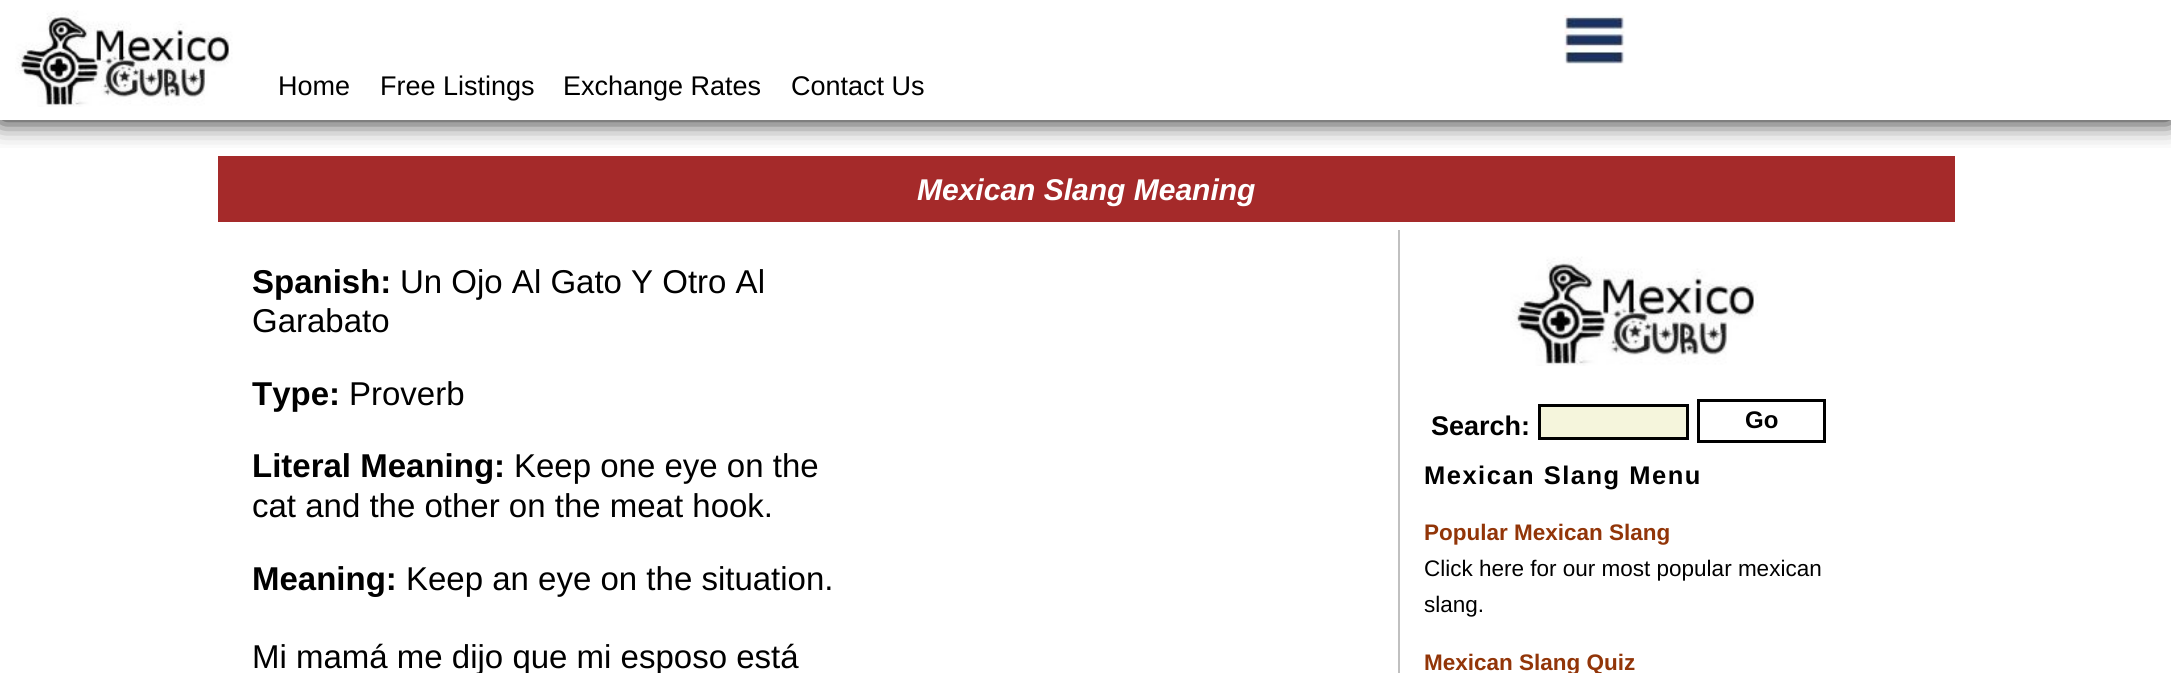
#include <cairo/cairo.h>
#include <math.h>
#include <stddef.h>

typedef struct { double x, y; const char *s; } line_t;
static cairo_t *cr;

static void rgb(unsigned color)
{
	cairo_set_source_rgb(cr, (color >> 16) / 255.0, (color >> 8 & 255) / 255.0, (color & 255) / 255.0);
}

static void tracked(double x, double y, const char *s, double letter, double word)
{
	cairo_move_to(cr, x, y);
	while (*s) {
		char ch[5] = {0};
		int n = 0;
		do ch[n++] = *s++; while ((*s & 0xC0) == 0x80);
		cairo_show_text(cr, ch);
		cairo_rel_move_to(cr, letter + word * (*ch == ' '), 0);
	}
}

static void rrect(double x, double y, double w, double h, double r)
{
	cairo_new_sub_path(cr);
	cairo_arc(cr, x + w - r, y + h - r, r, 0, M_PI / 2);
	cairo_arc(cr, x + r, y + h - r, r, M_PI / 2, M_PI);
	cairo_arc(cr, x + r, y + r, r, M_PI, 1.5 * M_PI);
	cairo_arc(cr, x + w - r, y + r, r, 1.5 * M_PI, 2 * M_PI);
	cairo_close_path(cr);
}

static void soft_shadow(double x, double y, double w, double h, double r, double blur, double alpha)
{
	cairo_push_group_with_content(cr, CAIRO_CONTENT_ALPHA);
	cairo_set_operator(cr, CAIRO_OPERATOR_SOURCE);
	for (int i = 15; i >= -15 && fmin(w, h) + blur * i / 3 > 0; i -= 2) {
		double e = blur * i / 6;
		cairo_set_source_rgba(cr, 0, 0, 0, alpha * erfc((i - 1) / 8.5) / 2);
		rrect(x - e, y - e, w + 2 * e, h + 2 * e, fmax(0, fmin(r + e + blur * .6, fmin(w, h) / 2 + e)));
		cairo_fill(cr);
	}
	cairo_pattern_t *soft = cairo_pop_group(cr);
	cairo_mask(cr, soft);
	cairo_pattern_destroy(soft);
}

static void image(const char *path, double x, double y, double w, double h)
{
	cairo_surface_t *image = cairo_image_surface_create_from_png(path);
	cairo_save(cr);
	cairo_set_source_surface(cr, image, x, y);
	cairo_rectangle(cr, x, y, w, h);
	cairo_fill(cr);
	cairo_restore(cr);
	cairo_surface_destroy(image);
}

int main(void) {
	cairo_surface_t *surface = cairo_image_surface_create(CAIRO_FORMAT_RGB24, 2171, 673);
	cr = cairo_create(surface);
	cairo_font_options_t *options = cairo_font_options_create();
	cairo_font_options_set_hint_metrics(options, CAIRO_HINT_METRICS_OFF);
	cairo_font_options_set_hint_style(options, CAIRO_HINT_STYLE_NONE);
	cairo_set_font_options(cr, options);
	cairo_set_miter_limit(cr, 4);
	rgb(0xffffff);
	cairo_paint(cr);
	rgb(0xa52a2a);
	cairo_rectangle(cr, 218, 156, 1737, 66);
	cairo_fill(cr);
	cairo_save(cr);
	cairo_rectangle(cr, 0, 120, 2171, 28);
	cairo_clip(cr);
	rgb(0x000000);
	soft_shadow(0, 0, 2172, 120, 0, 13.5, 1);
	cairo_restore(cr);
	image("img/1.png", 15, 10, 218, 97);
	image("img/2.png", 1564, 15, 61, 49);
	rgb(0xc0c0c0);
	cairo_rectangle(cr, 1398, 230, 2, 443);
	cairo_fill(cr);
	image("img/3.png", 1510, 256, 248, 110);
	rgb(0xf5f5dc);
	cairo_rectangle(cr, 1539.5, 405.5, 148, 33);
	cairo_fill_preserve(cr);
	rgb(0x000000);
	cairo_set_line_width(cr, 3);
	cairo_stroke(cr);
	cairo_rectangle(cr, 1698.5, 400.5, 126, 41);
	cairo_stroke(cr);
	cairo_select_font_face(cr, "Liberation Sans", CAIRO_FONT_SLANT_NORMAL, CAIRO_FONT_WEIGHT_NORMAL);
	cairo_set_font_size(cr, 27);
	{
		static const line_t items[] = {
			{278, 95, "Home"},
			{380, 95, "Free Listings"},
			{563, 95, "Exchange Rates"},
			{791, 95, "Contact Us"},
		};
		for (size_t i = 0; i < sizeof items / sizeof *items; i++) {
			cairo_move_to(cr, items[i].x, items[i].y);
			cairo_show_text(cr, items[i].s);
		}
	}
	cairo_select_font_face(cr, "Liberation Sans", CAIRO_FONT_SLANT_ITALIC, CAIRO_FONT_WEIGHT_BOLD);
	cairo_set_font_size(cr, 30);
	rgb(0xffffff);
	cairo_move_to(cr, 917, 200);
	cairo_show_text(cr, "Mexican Slang Meaning");
	cairo_select_font_face(cr, "Liberation Sans", CAIRO_FONT_SLANT_NORMAL, CAIRO_FONT_WEIGHT_BOLD);
	cairo_set_font_size(cr, 33);
	rgb(0x000000);
	cairo_move_to(cr, 252, 293);
	cairo_show_text(cr, "Spanish:");
	cairo_select_font_face(cr, "Liberation Sans", CAIRO_FONT_SLANT_NORMAL, CAIRO_FONT_WEIGHT_NORMAL);
	cairo_move_to(cr, 400, 293);
	cairo_show_text(cr, "Un Ojo Al Gato Y Otro Al");
	cairo_move_to(cr, 252, 332);
	cairo_show_text(cr, "Garabato");
	cairo_select_font_face(cr, "Liberation Sans", CAIRO_FONT_SLANT_NORMAL, CAIRO_FONT_WEIGHT_BOLD);
	cairo_move_to(cr, 252, 405);
	cairo_show_text(cr, "Type:");
	cairo_select_font_face(cr, "Liberation Sans", CAIRO_FONT_SLANT_NORMAL, CAIRO_FONT_WEIGHT_NORMAL);
	cairo_move_to(cr, 349, 405);
	cairo_show_text(cr, "Proverb");
	cairo_select_font_face(cr, "Liberation Sans", CAIRO_FONT_SLANT_NORMAL, CAIRO_FONT_WEIGHT_BOLD);
	cairo_move_to(cr, 252, 477);
	cairo_show_text(cr, "Literal Meaning:");
	cairo_select_font_face(cr, "Liberation Sans", CAIRO_FONT_SLANT_NORMAL, CAIRO_FONT_WEIGHT_NORMAL);
	cairo_move_to(cr, 514, 477);
	cairo_show_text(cr, "Keep one eye on the");
	cairo_move_to(cr, 252, 517);
	cairo_show_text(cr, "cat and the other on the meat hook.");
	cairo_select_font_face(cr, "Liberation Sans", CAIRO_FONT_SLANT_NORMAL, CAIRO_FONT_WEIGHT_BOLD);
	cairo_move_to(cr, 252, 590);
	cairo_show_text(cr, "Meaning:");
	cairo_select_font_face(cr, "Liberation Sans", CAIRO_FONT_SLANT_NORMAL, CAIRO_FONT_WEIGHT_NORMAL);
	cairo_move_to(cr, 406, 590);
	cairo_show_text(cr, "Keep an eye on the situation.");
	cairo_move_to(cr, 252, 668);
	cairo_show_text(cr, "Mi mamá me dijo que mi esposo está");
	cairo_select_font_face(cr, "Liberation Sans", CAIRO_FONT_SLANT_NORMAL, CAIRO_FONT_WEIGHT_BOLD);
	cairo_set_font_size(cr, 27);
	cairo_move_to(cr, 1431, 435);
	cairo_show_text(cr, "Search:");
	cairo_set_font_size(cr, 24);
	cairo_move_to(cr, 1745, 428);
	cairo_show_text(cr, "Go");
	cairo_set_font_size(cr, 25.5);
	tracked(1424, 484, "Mexican Slang Menu", 1.5, 0);
	cairo_set_font_size(cr, 22.5);
	rgb(0x923508);
	cairo_move_to(cr, 1424, 540);
	cairo_show_text(cr, "Popular Mexican Slang");
	cairo_select_font_face(cr, "Liberation Sans", CAIRO_FONT_SLANT_NORMAL, CAIRO_FONT_WEIGHT_NORMAL);
	rgb(0x000000);
	cairo_move_to(cr, 1424, 576);
	cairo_show_text(cr, "Click here for our most popular mexican");
	cairo_move_to(cr, 1424, 612);
	cairo_show_text(cr, "slang.");
	cairo_select_font_face(cr, "Liberation Sans", CAIRO_FONT_SLANT_NORMAL, CAIRO_FONT_WEIGHT_BOLD);
	rgb(0x923508);
	cairo_move_to(cr, 1424, 670);
	cairo_show_text(cr, "Mexican Slang Quiz");
	cairo_surface_write_to_png(surface, "page.png");
	cairo_font_options_destroy(options);
	cairo_destroy(cr);
	cairo_surface_destroy(surface);
	return 0;
}
